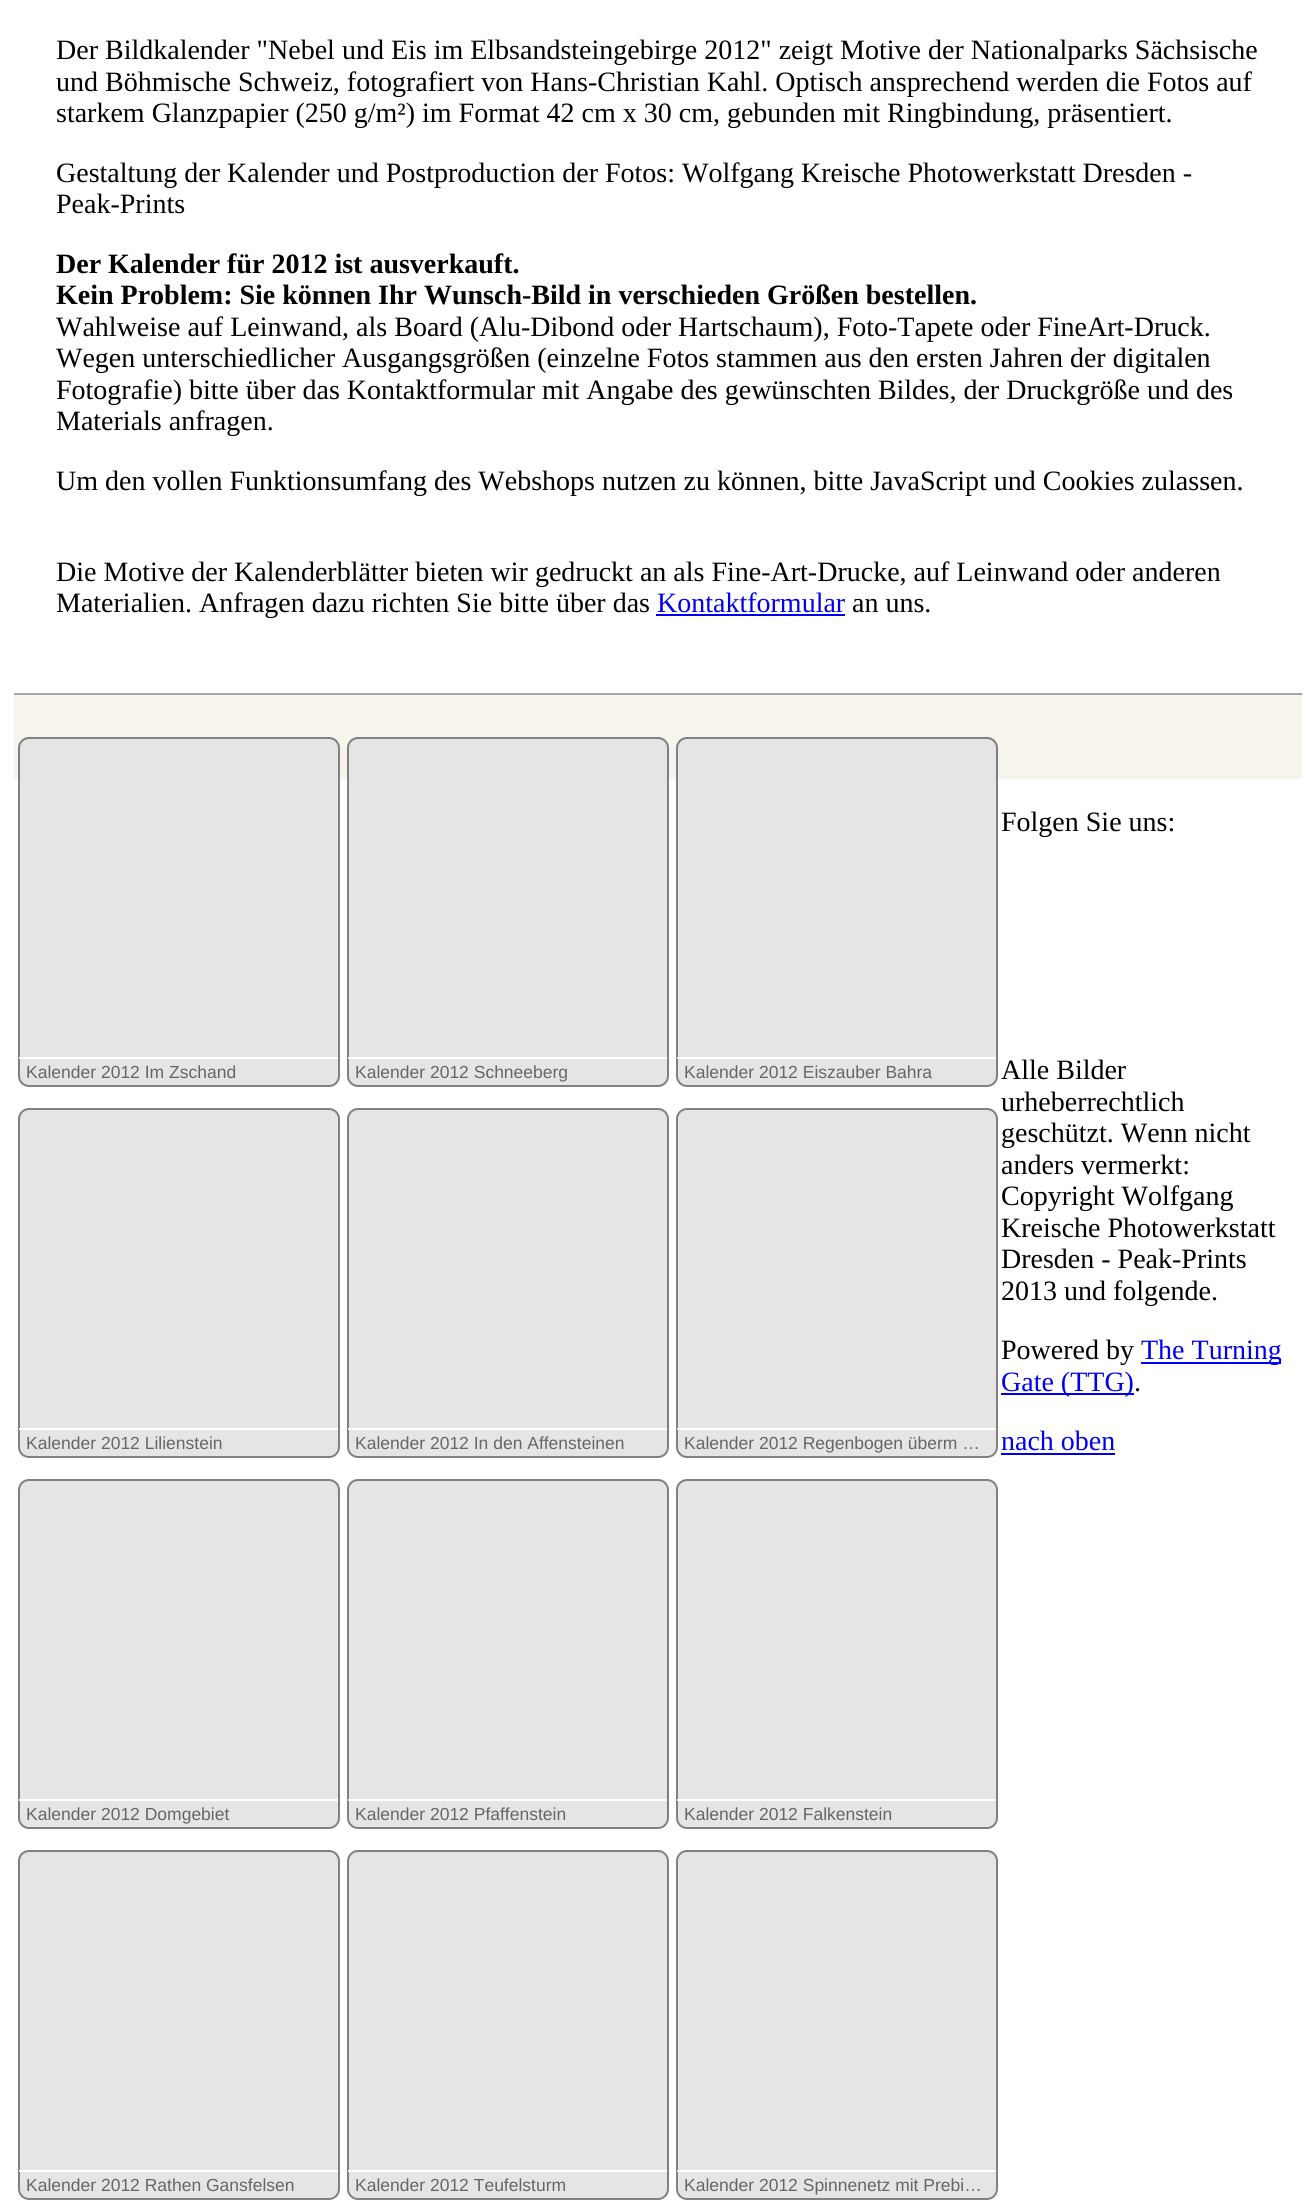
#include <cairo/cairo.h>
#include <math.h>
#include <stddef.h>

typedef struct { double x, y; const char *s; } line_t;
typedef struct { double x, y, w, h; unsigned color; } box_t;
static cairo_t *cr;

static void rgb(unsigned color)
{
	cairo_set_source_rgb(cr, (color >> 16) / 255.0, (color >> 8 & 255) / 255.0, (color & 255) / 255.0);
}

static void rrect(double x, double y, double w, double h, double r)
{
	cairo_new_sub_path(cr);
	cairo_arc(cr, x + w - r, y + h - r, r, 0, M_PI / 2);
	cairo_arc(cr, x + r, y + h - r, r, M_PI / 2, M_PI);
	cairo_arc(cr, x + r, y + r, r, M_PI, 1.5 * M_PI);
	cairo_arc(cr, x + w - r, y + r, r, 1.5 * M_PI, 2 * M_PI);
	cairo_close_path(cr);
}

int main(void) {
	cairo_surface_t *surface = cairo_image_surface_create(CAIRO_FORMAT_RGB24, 1315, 2208);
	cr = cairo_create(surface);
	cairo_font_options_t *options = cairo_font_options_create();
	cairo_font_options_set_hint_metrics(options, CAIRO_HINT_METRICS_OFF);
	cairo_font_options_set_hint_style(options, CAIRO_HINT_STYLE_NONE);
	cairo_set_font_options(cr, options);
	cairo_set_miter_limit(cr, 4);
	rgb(0xffffff);
	cairo_paint(cr);
	{
		static const box_t items[] = {
			{656, 614, 189, 2, 0x0000ee},
			{14, 695, 1288, 84, 0xf7f4ed},
			{14, 693, 1288, 2, 0xa6a6a6},
		};
		for (size_t i = 0; i < sizeof items / sizeof *items; i++) {
			rgb(items[i].color);
			cairo_rectangle(cr, items[i].x, items[i].y, items[i].w, items[i].h);
			cairo_fill(cr);
		}
	}
	rgb(0xe5e5e5);
	rrect(19, 738, 320, 348, 10);
	cairo_fill_preserve(cr);
	rgb(0x808080);
	cairo_stroke(cr);
	rgb(0xffffff);
	cairo_rectangle(cr, 19, 1057, 319, 2);
	cairo_fill(cr);
	rgb(0xe5e5e5);
	rrect(348, 738, 320, 348, 10);
	cairo_fill_preserve(cr);
	rgb(0x808080);
	cairo_stroke(cr);
	rgb(0xffffff);
	cairo_rectangle(cr, 348, 1057, 319, 2);
	cairo_fill(cr);
	rgb(0xe5e5e5);
	rrect(677, 738, 320, 348, 10);
	cairo_fill_preserve(cr);
	rgb(0x808080);
	cairo_stroke(cr);
	rgb(0xffffff);
	cairo_rectangle(cr, 677, 1057, 319, 2);
	cairo_fill(cr);
	rgb(0xe5e5e5);
	rrect(19, 1109, 320, 348, 10);
	cairo_fill_preserve(cr);
	rgb(0x808080);
	cairo_stroke(cr);
	rgb(0xffffff);
	cairo_rectangle(cr, 19, 1428, 319, 2);
	cairo_fill(cr);
	rgb(0xe5e5e5);
	rrect(348, 1109, 320, 348, 10);
	cairo_fill_preserve(cr);
	rgb(0x808080);
	cairo_stroke(cr);
	rgb(0xffffff);
	cairo_rectangle(cr, 348, 1428, 319, 2);
	cairo_fill(cr);
	rgb(0xe5e5e5);
	rrect(677, 1109, 320, 348, 10);
	cairo_fill_preserve(cr);
	rgb(0x808080);
	cairo_stroke(cr);
	rgb(0xffffff);
	cairo_rectangle(cr, 677, 1428, 319, 2);
	cairo_fill(cr);
	rgb(0xe5e5e5);
	rrect(19, 1480, 320, 348, 10);
	cairo_fill_preserve(cr);
	rgb(0x808080);
	cairo_stroke(cr);
	rgb(0xffffff);
	cairo_rectangle(cr, 19, 1799, 319, 2);
	cairo_fill(cr);
	rgb(0xe5e5e5);
	rrect(348, 1480, 320, 348, 10);
	cairo_fill_preserve(cr);
	rgb(0x808080);
	cairo_stroke(cr);
	rgb(0xffffff);
	cairo_rectangle(cr, 348, 1799, 319, 2);
	cairo_fill(cr);
	rgb(0xe5e5e5);
	rrect(677, 1480, 320, 348, 10);
	cairo_fill_preserve(cr);
	rgb(0x808080);
	cairo_stroke(cr);
	rgb(0xffffff);
	cairo_rectangle(cr, 677, 1799, 319, 2);
	cairo_fill(cr);
	rgb(0xe5e5e5);
	rrect(19, 1851, 320, 348, 10);
	cairo_fill_preserve(cr);
	rgb(0x808080);
	cairo_stroke(cr);
	rgb(0xffffff);
	cairo_rectangle(cr, 19, 2170, 319, 2);
	cairo_fill(cr);
	rgb(0xe5e5e5);
	rrect(348, 1851, 320, 348, 10);
	cairo_fill_preserve(cr);
	rgb(0x808080);
	cairo_stroke(cr);
	rgb(0xffffff);
	cairo_rectangle(cr, 348, 2170, 319, 2);
	cairo_fill(cr);
	rgb(0xe5e5e5);
	rrect(677, 1851, 320, 348, 10);
	cairo_fill_preserve(cr);
	rgb(0x808080);
	cairo_stroke(cr);
	{
		static const box_t items[] = {
			{677, 2170, 319, 2, 0xffffff},
			{1141, 1362, 140, 2, 0x0000ee},
			{1001, 1393, 133, 2, 0x0000ee},
			{1001, 1453, 114, 2, 0x0000ee},
		};
		for (size_t i = 0; i < sizeof items / sizeof *items; i++) {
			rgb(items[i].color);
			cairo_rectangle(cr, items[i].x, items[i].y, items[i].w, items[i].h);
			cairo_fill(cr);
		}
	}
	cairo_select_font_face(cr, "Liberation Serif", CAIRO_FONT_SLANT_NORMAL, CAIRO_FONT_WEIGHT_NORMAL);
	cairo_set_font_size(cr, 28);
	rgb(0x000000);
	{
		static const line_t items[] = {
			{56, 59, "Der Bildkalender \"Nebel und Eis im Elbsandsteingebirge 2012\" zeigt Motive der Nationalparks Sächsische"},
			{56, 91, "und Böhmische Schweiz, fotografiert von Hans-Christian Kahl. Optisch ansprechend werden die Fotos auf"},
			{56, 122, "starkem Glanzpapier (250 g/m²) im Format 42 cm x 30 cm, gebunden mit Ringbindung, präsentiert."},
			{56, 182, "Gestaltung der Kalender und Postproduction der Fotos: Wolfgang Kreische Photowerkstatt Dresden -"},
			{56, 213, "Peak-Prints"},
		};
		for (size_t i = 0; i < sizeof items / sizeof *items; i++) {
			cairo_move_to(cr, items[i].x, items[i].y);
			cairo_show_text(cr, items[i].s);
		}
	}
	cairo_select_font_face(cr, "Liberation Serif", CAIRO_FONT_SLANT_NORMAL, CAIRO_FONT_WEIGHT_BOLD);
	cairo_move_to(cr, 56, 273);
	cairo_show_text(cr, "Der Kalender für 2012 ist ausverkauft.");
	cairo_move_to(cr, 56, 304);
	cairo_show_text(cr, "Kein Problem: Sie können Ihr Wunsch-Bild in verschieden Größen bestellen.");
	cairo_select_font_face(cr, "Liberation Serif", CAIRO_FONT_SLANT_NORMAL, CAIRO_FONT_WEIGHT_NORMAL);
	{
		static const line_t items[] = {
			{56, 336, "Wahlweise auf Leinwand, als Board (Alu-Dibond oder Hartschaum), Foto-Tapete oder FineArt-Druck."},
			{56, 367, "Wegen unterschiedlicher Ausgangsgrößen (einzelne Fotos stammen aus den ersten Jahren der digitalen"},
			{56, 399, "Fotografie) bitte über das Kontaktformular mit Angabe des gewünschten Bildes, der Druckgröße und des"},
			{56, 430, "Materials anfragen."},
			{56, 490, "Um den vollen Funktionsumfang des Webshops nutzen zu können, bitte JavaScript und Cookies zulassen."},
			{56, 581, "Die Motive der Kalenderblätter bieten wir gedruckt an als Fine-Art-Drucke, auf Leinwand oder anderen"},
			{56, 612, "Materialien. Anfragen dazu richten Sie bitte über das"},
		};
		for (size_t i = 0; i < sizeof items / sizeof *items; i++) {
			cairo_move_to(cr, items[i].x, items[i].y);
			cairo_show_text(cr, items[i].s);
		}
	}
	rgb(0x0000ee);
	cairo_move_to(cr, 657, 612);
	cairo_show_text(cr, "Kontaktformular");
	rgb(0x000000);
	cairo_move_to(cr, 852, 612);
	cairo_show_text(cr, "an uns.");
	cairo_select_font_face(cr, "Liberation Sans", CAIRO_FONT_SLANT_NORMAL, CAIRO_FONT_WEIGHT_NORMAL);
	cairo_set_font_size(cr, 17.5);
	rgb(0x666666);
	{
		static const line_t items[] = {
			{26, 1078, "Kalender 2012 Im Zschand"},
			{355, 1078, "Kalender 2012 Schneeberg"},
			{684, 1078, "Kalender 2012 Eiszauber Bahra"},
			{26, 1449, "Kalender 2012 Lilienstein"},
			{355, 1449, "Kalender 2012 In den Affensteinen"},
			{684, 1449, "Kalender 2012 Regenbogen überm …"},
			{26, 1820, "Kalender 2012 Domgebiet"},
			{355, 1820, "Kalender 2012 Pfaffenstein"},
			{684, 1820, "Kalender 2012 Falkenstein"},
			{26, 2191, "Kalender 2012 Rathen Gansfelsen"},
			{355, 2191, "Kalender 2012 Teufelsturm"},
			{684, 2191, "Kalender 2012 Spinnenetz mit Prebi…"},
		};
		for (size_t i = 0; i < sizeof items / sizeof *items; i++) {
			cairo_move_to(cr, items[i].x, items[i].y);
			cairo_show_text(cr, items[i].s);
		}
	}
	cairo_select_font_face(cr, "Liberation Serif", CAIRO_FONT_SLANT_NORMAL, CAIRO_FONT_WEIGHT_NORMAL);
	cairo_set_font_size(cr, 28);
	rgb(0x000000);
	{
		static const line_t items[] = {
			{1001, 831, "Folgen Sie uns:"},
			{1001, 1079, "Alle Bilder"},
			{1001, 1111, "urheberrechtlich"},
			{1001, 1142, "geschützt. Wenn nicht"},
			{1001, 1174, "anders vermerkt:"},
			{1001, 1205, "Copyright Wolfgang"},
			{1001, 1237, "Kreische Photowerkstatt"},
			{1001, 1268, "Dresden - Peak-Prints"},
			{1001, 1300, "2013 und folgende."},
			{1001, 1359, "Powered by"},
		};
		for (size_t i = 0; i < sizeof items / sizeof *items; i++) {
			cairo_move_to(cr, items[i].x, items[i].y);
			cairo_show_text(cr, items[i].s);
		}
	}
	rgb(0x0000ee);
	cairo_move_to(cr, 1141, 1359);
	cairo_show_text(cr, "The Turning");
	cairo_move_to(cr, 1001, 1391);
	cairo_show_text(cr, "Gate (TTG)");
	rgb(0x000000);
	cairo_move_to(cr, 1134, 1391);
	cairo_show_text(cr, ".");
	rgb(0x0000ee);
	cairo_move_to(cr, 1001, 1450);
	cairo_show_text(cr, "nach oben");
	cairo_surface_write_to_png(surface, "page.png");
	cairo_font_options_destroy(options);
	cairo_destroy(cr);
	cairo_surface_destroy(surface);
	return 0;
}
